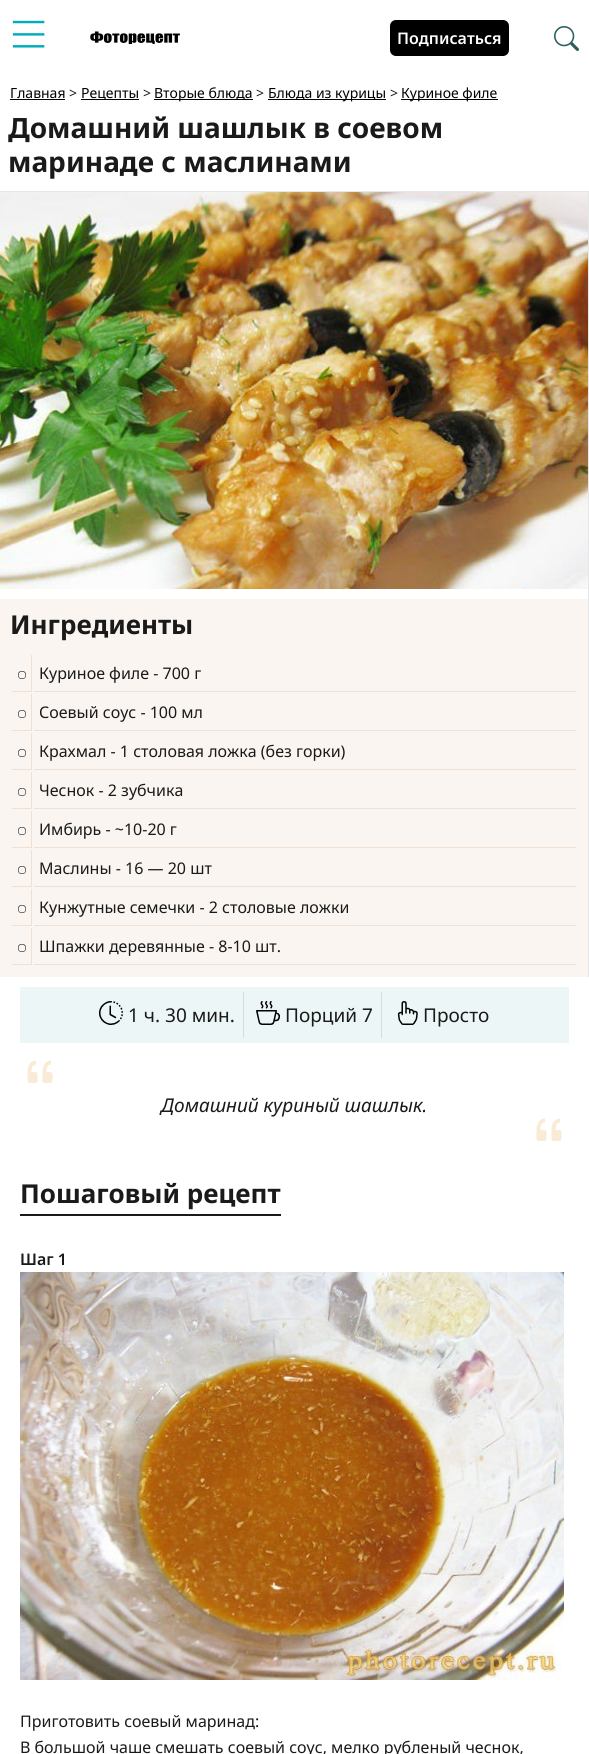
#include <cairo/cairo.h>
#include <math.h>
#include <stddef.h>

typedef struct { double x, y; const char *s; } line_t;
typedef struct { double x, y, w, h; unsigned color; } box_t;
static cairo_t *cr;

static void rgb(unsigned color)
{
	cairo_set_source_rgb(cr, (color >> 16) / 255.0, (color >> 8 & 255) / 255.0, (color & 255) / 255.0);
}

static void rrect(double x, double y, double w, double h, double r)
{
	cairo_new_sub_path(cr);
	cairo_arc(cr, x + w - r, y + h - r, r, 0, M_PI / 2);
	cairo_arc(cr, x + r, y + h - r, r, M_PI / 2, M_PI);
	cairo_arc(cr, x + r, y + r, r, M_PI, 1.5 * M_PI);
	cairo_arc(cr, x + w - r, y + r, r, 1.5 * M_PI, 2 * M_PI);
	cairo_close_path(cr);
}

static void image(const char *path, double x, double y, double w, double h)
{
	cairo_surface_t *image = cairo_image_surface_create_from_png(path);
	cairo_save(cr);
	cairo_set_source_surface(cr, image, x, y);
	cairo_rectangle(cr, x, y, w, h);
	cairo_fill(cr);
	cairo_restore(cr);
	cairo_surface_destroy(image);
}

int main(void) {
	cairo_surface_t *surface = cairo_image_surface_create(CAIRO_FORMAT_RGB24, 589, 1754);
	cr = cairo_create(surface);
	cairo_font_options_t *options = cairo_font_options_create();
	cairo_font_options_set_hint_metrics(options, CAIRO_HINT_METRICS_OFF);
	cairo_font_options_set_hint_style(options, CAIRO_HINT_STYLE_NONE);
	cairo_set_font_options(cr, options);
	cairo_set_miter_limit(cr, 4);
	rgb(0xffffff);
	cairo_paint(cr);
	image("img/1.png", 12, 20, 33, 28);
	image("img/2.png", 90, 31, 90, 13);
	rgb(0x000000);
	rrect(390, 20, 119, 36, 6);
	cairo_fill(cr);
	image("img/3.png", 554, 26, 25, 25);
	{
		static const box_t items[] = {
			{10, 99, 55, 1, 0x000000},
			{81, 99, 58, 1, 0x000000},
			{154, 99, 99, 1, 0x000000},
			{268, 99, 118, 1, 0x000000},
			{401, 99, 97, 1, 0x000000},
			{0, 191, 589, 1, 0xe6e6e6},
			{588, 192, 1, 785, 0xe6e6e6},
		};
		for (size_t i = 0; i < sizeof items / sizeof *items; i++) {
			rgb(items[i].color);
			cairo_rectangle(cr, items[i].x, items[i].y, items[i].w, items[i].h);
			cairo_fill(cr);
		}
	}
	image("img/4.png", 0, 192, 588, 397);
	{
		static const box_t items[] = {
			{0, 599, 588, 378, 0xfaf5f1},
			{31, 655, 1, 37, 0xefe0d3},
			{12, 691, 20, 1, 0xefe0d3},
		};
		for (size_t i = 0; i < sizeof items / sizeof *items; i++) {
			rgb(items[i].color);
			cairo_rectangle(cr, items[i].x, items[i].y, items[i].w, items[i].h);
			cairo_fill(cr);
		}
	}
	image("img/5.png", 18, 671, 8, 8);
	{
		static const box_t items[] = {
			{34, 691, 542, 1, 0xefe0d3},
			{31, 694, 1, 37, 0xefe0d3},
			{12, 730, 20, 1, 0xefe0d3},
		};
		for (size_t i = 0; i < sizeof items / sizeof *items; i++) {
			rgb(items[i].color);
			cairo_rectangle(cr, items[i].x, items[i].y, items[i].w, items[i].h);
			cairo_fill(cr);
		}
	}
	image("img/5.png", 18, 710, 8, 8);
	{
		static const box_t items[] = {
			{34, 730, 542, 1, 0xefe0d3},
			{31, 733, 1, 37, 0xefe0d3},
			{12, 769, 20, 1, 0xefe0d3},
		};
		for (size_t i = 0; i < sizeof items / sizeof *items; i++) {
			rgb(items[i].color);
			cairo_rectangle(cr, items[i].x, items[i].y, items[i].w, items[i].h);
			cairo_fill(cr);
		}
	}
	image("img/5.png", 18, 749, 8, 8);
	{
		static const box_t items[] = {
			{34, 769, 542, 1, 0xefe0d3},
			{31, 772, 1, 37, 0xefe0d3},
			{12, 808, 20, 1, 0xefe0d3},
		};
		for (size_t i = 0; i < sizeof items / sizeof *items; i++) {
			rgb(items[i].color);
			cairo_rectangle(cr, items[i].x, items[i].y, items[i].w, items[i].h);
			cairo_fill(cr);
		}
	}
	image("img/5.png", 18, 788, 8, 8);
	{
		static const box_t items[] = {
			{34, 808, 542, 1, 0xefe0d3},
			{31, 811, 1, 37, 0xefe0d3},
			{12, 847, 20, 1, 0xefe0d3},
		};
		for (size_t i = 0; i < sizeof items / sizeof *items; i++) {
			rgb(items[i].color);
			cairo_rectangle(cr, items[i].x, items[i].y, items[i].w, items[i].h);
			cairo_fill(cr);
		}
	}
	image("img/5.png", 18, 827, 8, 8);
	{
		static const box_t items[] = {
			{34, 847, 542, 1, 0xefe0d3},
			{31, 850, 1, 37, 0xefe0d3},
			{12, 886, 20, 1, 0xefe0d3},
		};
		for (size_t i = 0; i < sizeof items / sizeof *items; i++) {
			rgb(items[i].color);
			cairo_rectangle(cr, items[i].x, items[i].y, items[i].w, items[i].h);
			cairo_fill(cr);
		}
	}
	image("img/5.png", 18, 866, 8, 8);
	{
		static const box_t items[] = {
			{34, 886, 542, 1, 0xefe0d3},
			{31, 889, 1, 37, 0xefe0d3},
			{12, 925, 20, 1, 0xefe0d3},
		};
		for (size_t i = 0; i < sizeof items / sizeof *items; i++) {
			rgb(items[i].color);
			cairo_rectangle(cr, items[i].x, items[i].y, items[i].w, items[i].h);
			cairo_fill(cr);
		}
	}
	image("img/5.png", 18, 905, 8, 8);
	{
		static const box_t items[] = {
			{34, 925, 542, 1, 0xefe0d3},
			{31, 928, 1, 37, 0xefe0d3},
			{12, 964, 20, 1, 0xefe0d3},
		};
		for (size_t i = 0; i < sizeof items / sizeof *items; i++) {
			rgb(items[i].color);
			cairo_rectangle(cr, items[i].x, items[i].y, items[i].w, items[i].h);
			cairo_fill(cr);
		}
	}
	image("img/5.png", 18, 944, 8, 8);
	{
		static const box_t items[] = {
			{34, 964, 542, 1, 0xefe0d3},
			{20, 987, 549, 56, 0xecf6f6},
			{243, 992, 1, 46, 0xd4dddd},
		};
		for (size_t i = 0; i < sizeof items / sizeof *items; i++) {
			rgb(items[i].color);
			cairo_rectangle(cr, items[i].x, items[i].y, items[i].w, items[i].h);
			cairo_fill(cr);
		}
	}
	image("img/6.png", 99, 1001, 24, 24);
	cairo_rectangle(cr, 381, 992, 1, 46);
	cairo_fill(cr);
	image("img/7.png", 256, 1001, 24, 24);
	image("img/8.png", 397, 1001, 21, 24);
	image("img/9.png", 27, 1060, 26, 23);
	image("img/9.png", 536, 1118, 26, 23);
	rgb(0x1a1a1a);
	cairo_rectangle(cr, 20, 1214, 261, 2);
	cairo_fill(cr);
	image("img/10.png", 20, 1272, 544, 408);
	cairo_select_font_face(cr, "Noto Sans SemiBold", CAIRO_FONT_SLANT_NORMAL, CAIRO_FONT_WEIGHT_NORMAL);
	cairo_set_font_size(cr, 16);
	rgb(0xffffff);
	cairo_move_to(cr, 397, 44);
	cairo_show_text(cr, "Подписаться");
	cairo_select_font_face(cr, "Noto Sans", CAIRO_FONT_SLANT_NORMAL, CAIRO_FONT_WEIGHT_NORMAL);
	cairo_set_font_size(cr, 14);
	rgb(0x000000);
	cairo_move_to(cr, 10, 98);
	cairo_show_text(cr, "Главная");
	rgb(0x1a1a1a);
	cairo_move_to(cr, 69, 98);
	cairo_show_text(cr, ">");
	rgb(0x000000);
	cairo_move_to(cr, 81, 98);
	cairo_show_text(cr, "Рецепты");
	rgb(0x1a1a1a);
	cairo_move_to(cr, 143, 98);
	cairo_show_text(cr, ">");
	rgb(0x000000);
	cairo_move_to(cr, 154, 98);
	cairo_show_text(cr, "Вторые блюда");
	rgb(0x1a1a1a);
	cairo_move_to(cr, 256, 98);
	cairo_show_text(cr, ">");
	rgb(0x000000);
	cairo_move_to(cr, 268, 98);
	cairo_show_text(cr, "Блюда из курицы");
	rgb(0x1a1a1a);
	cairo_move_to(cr, 390, 98);
	cairo_show_text(cr, ">");
	rgb(0x000000);
	cairo_move_to(cr, 401, 98);
	cairo_show_text(cr, "Куриное филе");
	cairo_select_font_face(cr, "Noto Sans", CAIRO_FONT_SLANT_NORMAL, CAIRO_FONT_WEIGHT_BOLD);
	cairo_set_font_size(cr, 28);
	rgb(0x1a1a1a);
	cairo_move_to(cr, 8, 138);
	cairo_show_text(cr, "Домашний шашлык в соевом");
	cairo_move_to(cr, 8, 172);
	cairo_show_text(cr, "маринаде с маслинами");
	cairo_set_font_size(cr, 26);
	cairo_move_to(cr, 10, 634);
	cairo_show_text(cr, "Ингредиенты");
	cairo_select_font_face(cr, "Noto Sans", CAIRO_FONT_SLANT_NORMAL, CAIRO_FONT_WEIGHT_NORMAL);
	cairo_set_font_size(cr, 16);
	{
		static const line_t items[] = {
			{39, 679, "Куриное филе - 700 г"},
			{39, 718, "Соевый соус - 100 мл"},
			{39, 757, "Крахмал - 1 столовая ложка (без горки)"},
			{39, 796, "Чеснок - 2 зубчика"},
			{39, 835, "Имбирь - ~10-20 г"},
			{39, 874, "Маслины - 16 — 20 шт"},
			{39, 913, "Кунжутные семечки - 2 столовые ложки"},
			{39, 952, "Шпажки деревянные - 8-10 шт."},
		};
		for (size_t i = 0; i < sizeof items / sizeof *items; i++) {
			cairo_move_to(cr, items[i].x, items[i].y);
			cairo_show_text(cr, items[i].s);
		}
	}
	cairo_set_font_size(cr, 19);
	{
		static const line_t items[] = {
			{128, 1022, "1 ч. 30 мин."},
			{285, 1022, "Порций 7"},
			{423, 1022, "Просто"},
		};
		for (size_t i = 0; i < sizeof items / sizeof *items; i++) {
			cairo_move_to(cr, items[i].x, items[i].y);
			cairo_show_text(cr, items[i].s);
		}
	}
	cairo_select_font_face(cr, "Noto Sans", CAIRO_FONT_SLANT_ITALIC, CAIRO_FONT_WEIGHT_NORMAL);
	cairo_move_to(cr, 161, 1112);
	cairo_show_text(cr, "Домашний куриный шашлык.");
	cairo_select_font_face(cr, "Noto Sans", CAIRO_FONT_SLANT_NORMAL, CAIRO_FONT_WEIGHT_BOLD);
	cairo_set_font_size(cr, 26);
	cairo_move_to(cr, 20, 1203);
	cairo_show_text(cr, "Пошаговый рецепт");
	cairo_select_font_face(cr, "Noto Sans SemiBold", CAIRO_FONT_SLANT_NORMAL, CAIRO_FONT_WEIGHT_NORMAL);
	cairo_set_font_size(cr, 16);
	cairo_move_to(cr, 20, 1265);
	cairo_show_text(cr, "Шаг 1");
	cairo_select_font_face(cr, "Noto Sans", CAIRO_FONT_SLANT_NORMAL, CAIRO_FONT_WEIGHT_NORMAL);
	cairo_move_to(cr, 20, 1727);
	cairo_show_text(cr, "Приготовить соевый маринад:");
	cairo_move_to(cr, 20, 1753);
	cairo_show_text(cr, "В большой чаше смешать соевый соус, мелко рубленый чеснок,");
	cairo_surface_write_to_png(surface, "page.png");
	cairo_font_options_destroy(options);
	cairo_destroy(cr);
	cairo_surface_destroy(surface);
	return 0;
}
